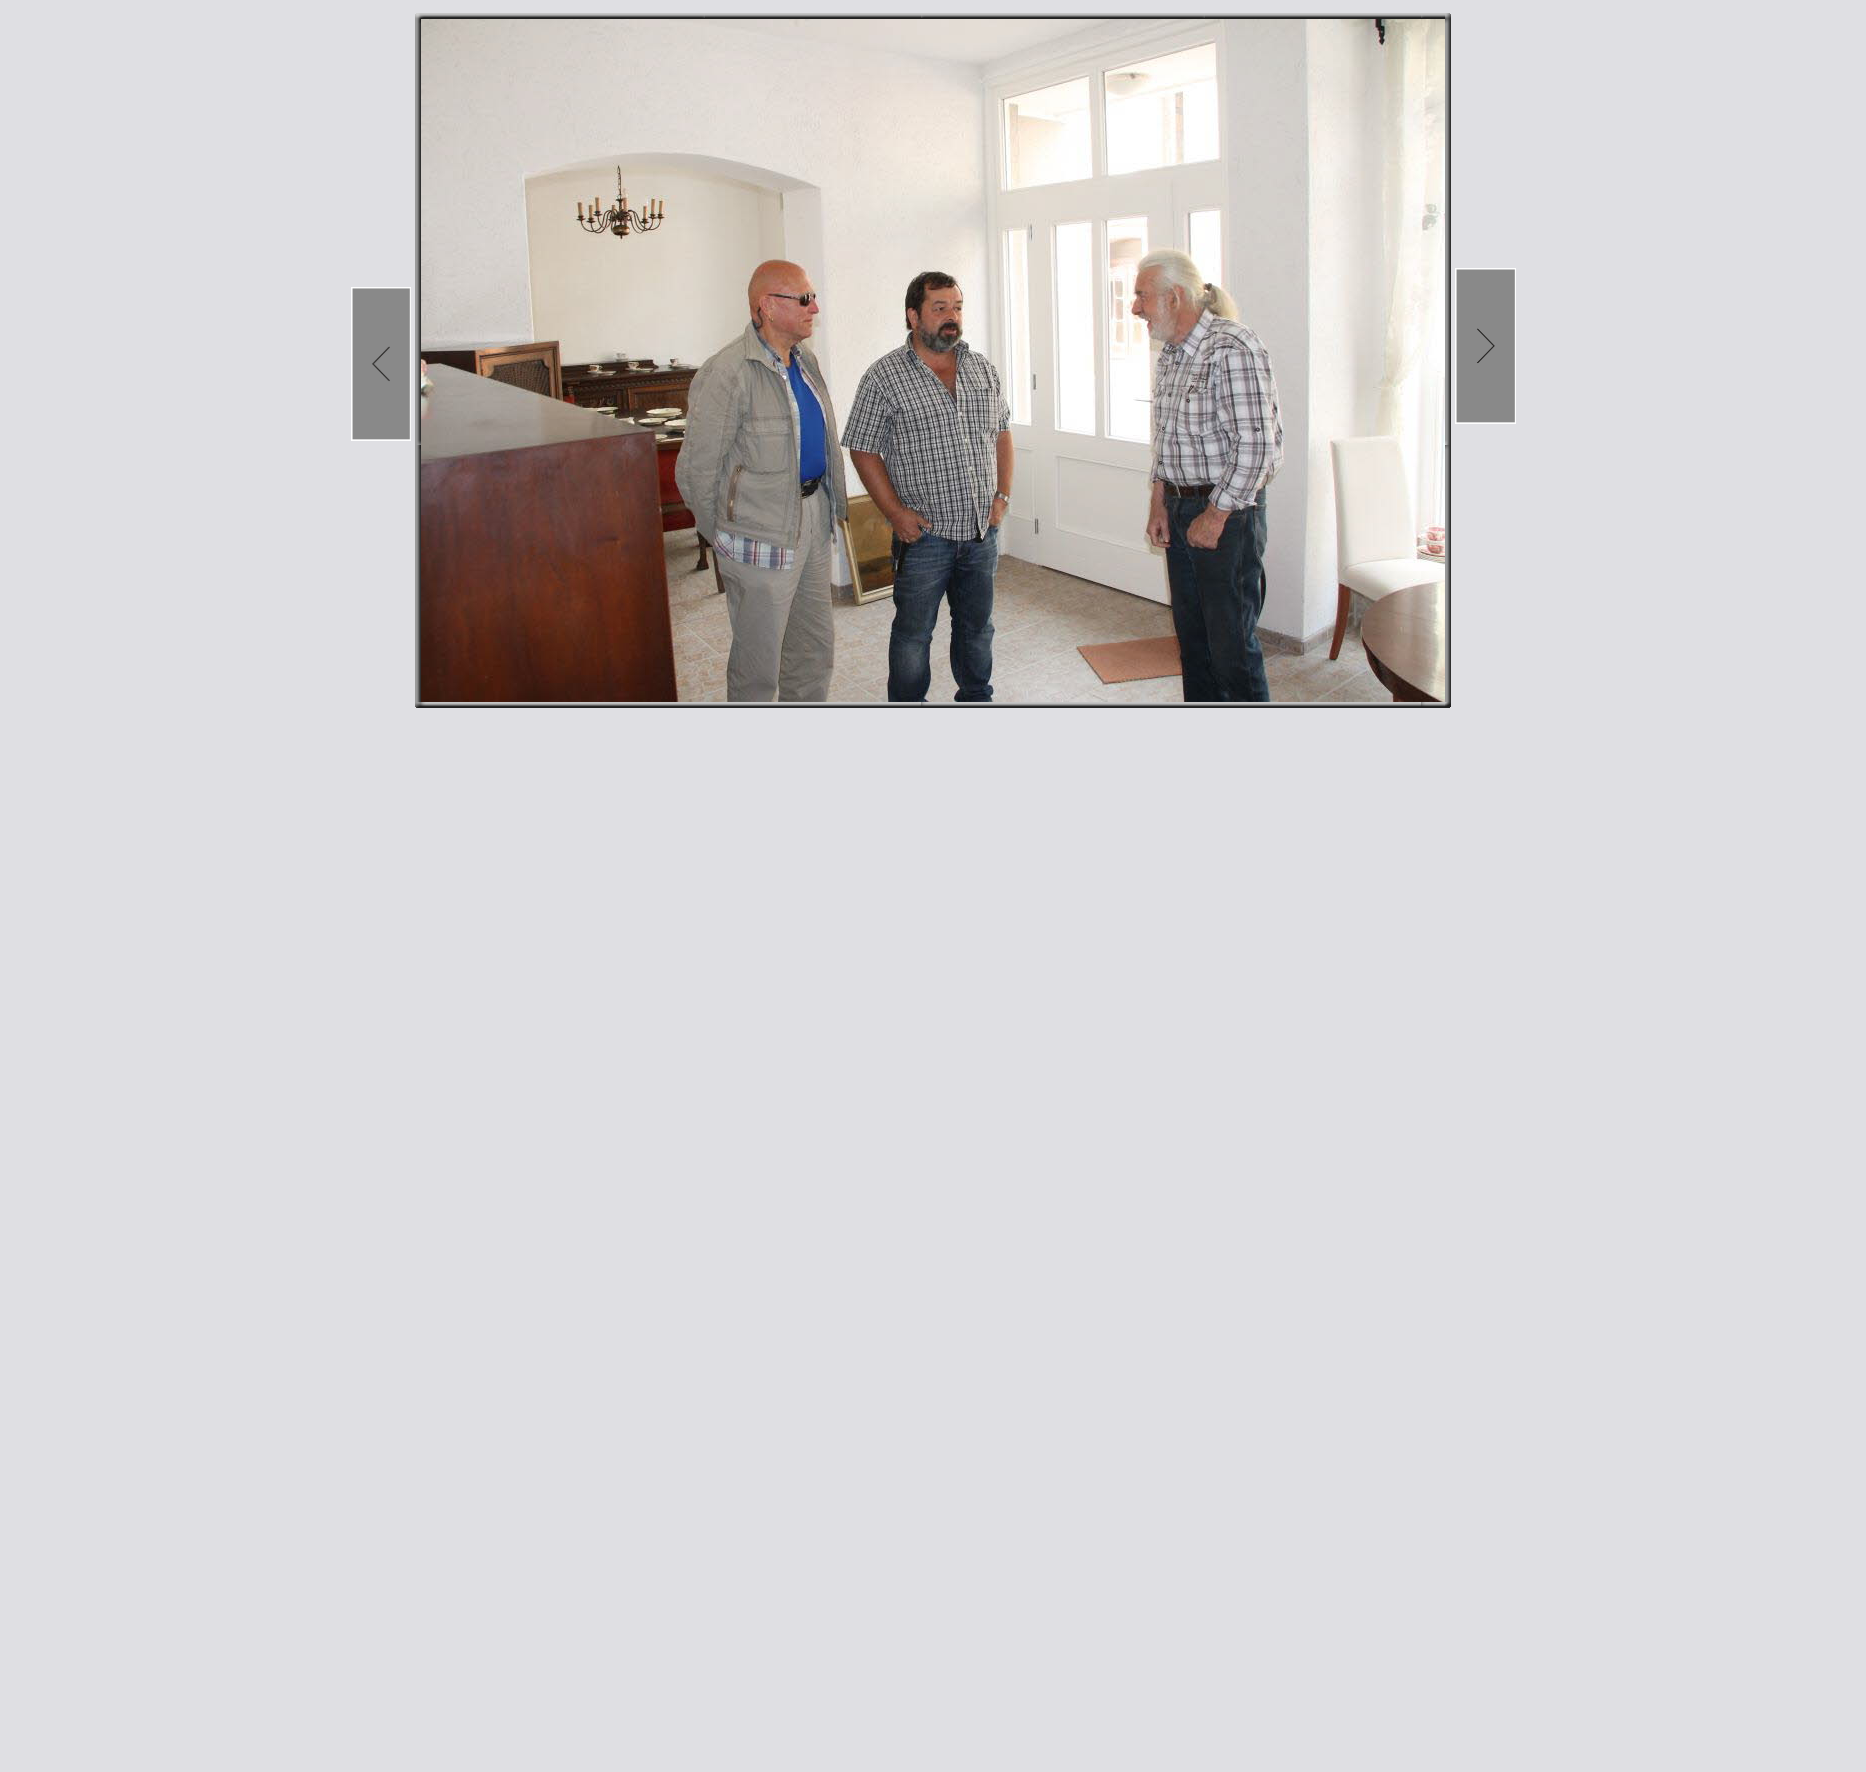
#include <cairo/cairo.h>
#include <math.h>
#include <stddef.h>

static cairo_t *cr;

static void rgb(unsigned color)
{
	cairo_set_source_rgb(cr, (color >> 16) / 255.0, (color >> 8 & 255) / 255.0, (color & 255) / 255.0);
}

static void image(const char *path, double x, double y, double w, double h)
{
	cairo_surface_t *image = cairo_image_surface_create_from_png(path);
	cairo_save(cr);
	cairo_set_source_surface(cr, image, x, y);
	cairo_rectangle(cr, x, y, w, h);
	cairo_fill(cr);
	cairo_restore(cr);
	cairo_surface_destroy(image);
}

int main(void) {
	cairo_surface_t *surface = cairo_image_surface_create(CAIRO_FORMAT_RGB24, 1866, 1772);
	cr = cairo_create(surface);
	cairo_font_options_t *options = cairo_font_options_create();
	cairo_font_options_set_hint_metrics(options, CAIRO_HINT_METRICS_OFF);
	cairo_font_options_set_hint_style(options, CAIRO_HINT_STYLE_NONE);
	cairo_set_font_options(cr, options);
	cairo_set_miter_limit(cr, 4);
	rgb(0xdfdfe3);
	cairo_paint(cr);
	image("img/1.png", 351, 287, 60, 154);
	image("img/2.png", 415, 13, 6, 6);
	image("img/3.png", 421, 13, 1024, 6);
	image("img/4.png", 1445, 13, 6, 6);
	image("img/5.png", 415, 19, 6, 683);
	image("img/6.png", 421, 19, 1024, 683);
	image("img/7.png", 1445, 19, 6, 683);
	image("img/8.png", 415, 702, 6, 6);
	image("img/9.png", 421, 702, 1024, 6);
	image("img/10.png", 1445, 702, 6, 6);
	image("img/11.png", 1455, 268, 61, 156);
	cairo_surface_write_to_png(surface, "page.png");
	cairo_font_options_destroy(options);
	cairo_destroy(cr);
	cairo_surface_destroy(surface);
	return 0;
}
